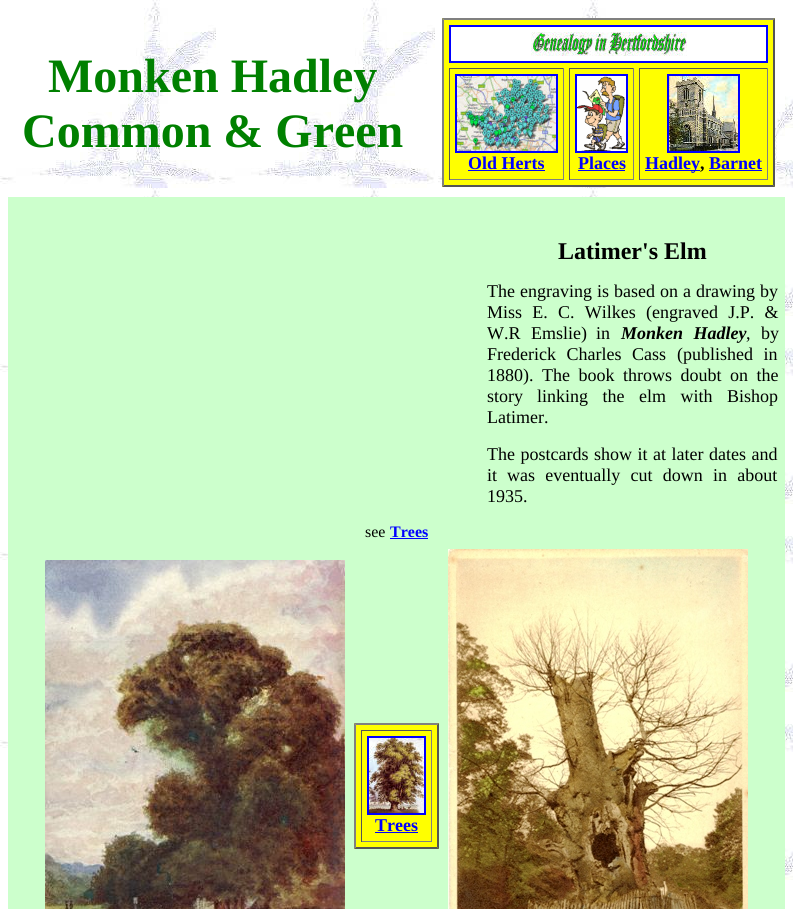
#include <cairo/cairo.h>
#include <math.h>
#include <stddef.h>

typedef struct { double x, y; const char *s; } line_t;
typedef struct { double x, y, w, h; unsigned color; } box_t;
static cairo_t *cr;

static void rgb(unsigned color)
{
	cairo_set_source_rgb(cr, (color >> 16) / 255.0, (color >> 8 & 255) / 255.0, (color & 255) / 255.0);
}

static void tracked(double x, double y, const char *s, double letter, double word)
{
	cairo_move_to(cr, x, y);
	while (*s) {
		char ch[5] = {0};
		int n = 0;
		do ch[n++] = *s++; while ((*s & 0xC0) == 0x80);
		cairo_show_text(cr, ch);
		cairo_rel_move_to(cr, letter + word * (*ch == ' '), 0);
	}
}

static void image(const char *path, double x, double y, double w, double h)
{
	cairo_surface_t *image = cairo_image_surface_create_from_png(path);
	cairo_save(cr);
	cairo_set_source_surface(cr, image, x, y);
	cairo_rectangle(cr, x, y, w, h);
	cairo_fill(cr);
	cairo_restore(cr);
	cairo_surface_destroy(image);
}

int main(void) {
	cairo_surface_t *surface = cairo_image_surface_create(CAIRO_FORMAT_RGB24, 793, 909);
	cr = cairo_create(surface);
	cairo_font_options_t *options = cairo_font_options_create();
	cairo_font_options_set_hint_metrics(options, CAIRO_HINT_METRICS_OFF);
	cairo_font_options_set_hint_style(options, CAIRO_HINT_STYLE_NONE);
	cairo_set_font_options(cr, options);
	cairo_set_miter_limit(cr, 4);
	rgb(0xffffff);
	cairo_paint(cr);
	image("img/1.png", 0, 0, 793, 909);
	rgb(0xffff00);
	cairo_rectangle(cr, 442, 18, 333, 169);
	cairo_fill(cr);
	rgb(0x808080);
	cairo_new_path(cr);
	cairo_move_to(cr, 442, 18);
	cairo_line_to(cr, 775, 18);
	cairo_line_to(cr, 773, 20);
	cairo_line_to(cr, 444, 20);
	cairo_close_path(cr);
	cairo_fill(cr);
	rgb(0x555555);
	cairo_new_path(cr);
	cairo_move_to(cr, 775, 18);
	cairo_line_to(cr, 775, 187);
	cairo_line_to(cr, 773, 185);
	cairo_line_to(cr, 773, 20);
	cairo_close_path(cr);
	cairo_fill(cr);
	cairo_new_path(cr);
	cairo_move_to(cr, 775, 187);
	cairo_line_to(cr, 442, 187);
	cairo_line_to(cr, 444, 185);
	cairo_line_to(cr, 773, 185);
	cairo_close_path(cr);
	cairo_fill(cr);
	rgb(0x808080);
	cairo_new_path(cr);
	cairo_move_to(cr, 442, 187);
	cairo_line_to(cr, 442, 18);
	cairo_line_to(cr, 444, 20);
	cairo_line_to(cr, 444, 185);
	cairo_close_path(cr);
	cairo_fill(cr);
	rgb(0xffffff);
	cairo_rectangle(cr, 450, 26, 317, 36);
	cairo_fill_preserve(cr);
	rgb(0x0000ff);
	cairo_stroke(cr);
	image("img/2.png", 531, 32, 156, 24);
	{
		static const box_t items[] = {
			{449, 68, 115, 1, 0x555555},
			{563, 68, 1, 112, 0x808080},
			{449, 179, 115, 1, 0x808080},
			{449, 68, 1, 112, 0x555555},
		};
		for (size_t i = 0; i < sizeof items / sizeof *items; i++) {
			rgb(items[i].color);
			cairo_rectangle(cr, items[i].x, items[i].y, items[i].w, items[i].h);
			cairo_fill(cr);
		}
	}
	cairo_rectangle(cr, 456, 75, 101, 77);
	rgb(0x0000ff);
	cairo_stroke(cr);
	image("img/3.png", 457, 76, 99, 75);
	{
		static const box_t items[] = {
			{468, 170, 77, 1, 0x0000ff},
			{569, 68, 65, 1, 0x555555},
			{633, 68, 1, 112, 0x808080},
			{569, 179, 65, 1, 0x808080},
			{569, 68, 1, 112, 0x555555},
		};
		for (size_t i = 0; i < sizeof items / sizeof *items; i++) {
			rgb(items[i].color);
			cairo_rectangle(cr, items[i].x, items[i].y, items[i].w, items[i].h);
			cairo_fill(cr);
		}
	}
	cairo_rectangle(cr, 576, 75, 51, 77);
	rgb(0x0000ff);
	cairo_stroke(cr);
	image("img/4.png", 577, 76, 49, 75);
	{
		static const box_t items[] = {
			{578, 170, 47, 1, 0x0000ff},
			{639, 68, 129, 1, 0x555555},
			{767, 68, 1, 112, 0x808080},
			{639, 179, 129, 1, 0x808080},
			{639, 68, 1, 112, 0x555555},
		};
		for (size_t i = 0; i < sizeof items / sizeof *items; i++) {
			rgb(items[i].color);
			cairo_rectangle(cr, items[i].x, items[i].y, items[i].w, items[i].h);
			cairo_fill(cr);
		}
	}
	cairo_rectangle(cr, 668, 75, 71, 77);
	rgb(0x0000ff);
	cairo_stroke(cr);
	image("img/5.png", 669, 76, 69, 75);
	cairo_rectangle(cr, 645, 170, 55, 1);
	cairo_fill(cr);
	cairo_rectangle(cr, 709, 170, 53, 1);
	cairo_fill(cr);
	cairo_rectangle(cr, 11, 200, 771, 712);
	rgb(0xccffcc);
	cairo_set_line_width(cr, 6);
	cairo_stroke(cr);
	cairo_rectangle(cr, 14, 203, 765, 706);
	cairo_fill(cr);
	rgb(0x0000ff);
	cairo_rectangle(cr, 390, 538, 38, 1);
	cairo_fill(cr);
	image("img/6.png", 45, 560, 300, 349);
	rgb(0xffff00);
	cairo_rectangle(cr, 354, 723, 85, 126);
	cairo_fill(cr);
	rgb(0x808080);
	cairo_new_path(cr);
	cairo_move_to(cr, 354, 723);
	cairo_line_to(cr, 439, 723);
	cairo_line_to(cr, 437, 725);
	cairo_line_to(cr, 356, 725);
	cairo_close_path(cr);
	cairo_fill(cr);
	rgb(0x555555);
	cairo_new_path(cr);
	cairo_move_to(cr, 439, 723);
	cairo_line_to(cr, 439, 849);
	cairo_line_to(cr, 437, 847);
	cairo_line_to(cr, 437, 725);
	cairo_close_path(cr);
	cairo_fill(cr);
	cairo_new_path(cr);
	cairo_move_to(cr, 439, 849);
	cairo_line_to(cr, 354, 849);
	cairo_line_to(cr, 356, 847);
	cairo_line_to(cr, 437, 847);
	cairo_close_path(cr);
	cairo_fill(cr);
	rgb(0x808080);
	cairo_new_path(cr);
	cairo_move_to(cr, 354, 849);
	cairo_line_to(cr, 354, 723);
	cairo_line_to(cr, 356, 725);
	cairo_line_to(cr, 356, 847);
	cairo_close_path(cr);
	cairo_fill(cr);
	{
		static const box_t items[] = {
			{361, 730, 71, 1, 0x555555},
			{431, 730, 1, 112, 0x808080},
			{361, 841, 71, 1, 0x808080},
			{361, 730, 1, 112, 0x555555},
		};
		for (size_t i = 0; i < sizeof items / sizeof *items; i++) {
			rgb(items[i].color);
			cairo_rectangle(cr, items[i].x, items[i].y, items[i].w, items[i].h);
			cairo_fill(cr);
		}
	}
	cairo_rectangle(cr, 368, 737, 57, 77);
	rgb(0x0000ff);
	cairo_set_line_width(cr, 2);
	cairo_stroke(cr);
	image("img/7.png", 369, 738, 55, 75);
	cairo_rectangle(cr, 375, 832, 43, 1);
	cairo_fill(cr);
	image("img/8.png", 448, 549, 300, 360);
	cairo_select_font_face(cr, "Liberation Serif", CAIRO_FONT_SLANT_NORMAL, CAIRO_FONT_WEIGHT_BOLD);
	cairo_set_font_size(cr, 48);
	rgb(0x008000);
	cairo_move_to(cr, 48, 92);
	cairo_show_text(cr, "Monken Hadley");
	cairo_move_to(cr, 22, 147);
	cairo_show_text(cr, "Common & Green");
	cairo_set_font_size(cr, 18);
	rgb(0x0000ff);
	{
		static const line_t items[] = {
			{468, 169, "Old Herts"},
			{578, 169, "Places"},
			{645, 169, "Hadley"},
		};
		for (size_t i = 0; i < sizeof items / sizeof *items; i++) {
			cairo_move_to(cr, items[i].x, items[i].y);
			cairo_show_text(cr, items[i].s);
		}
	}
	rgb(0x000000);
	cairo_move_to(cr, 700, 169);
	cairo_show_text(cr, ",");
	rgb(0x0000ff);
	cairo_move_to(cr, 709, 169);
	cairo_show_text(cr, "Barnet");
	cairo_set_font_size(cr, 24);
	rgb(0x000000);
	cairo_move_to(cr, 558, 259);
	cairo_show_text(cr, "Latimer's Elm");
	cairo_select_font_face(cr, "Liberation Serif", CAIRO_FONT_SLANT_NORMAL, CAIRO_FONT_WEIGHT_NORMAL);
	cairo_set_font_size(cr, 18);
	tracked(487, 297, "The engraving is based on", 0, 0.5);
	tracked(683, 297, "a drawing by", 0, 0.5);
	tracked(487, 318, "Miss E. C. Wilkes (engraved J.P. &", 0, 5.75);
	tracked(487, 339, "W.R Emslie)", 0, 6);
	cairo_move_to(cr, 596, 339);
	cairo_show_text(cr, "in");
	cairo_select_font_face(cr, "Liberation Serif", CAIRO_FONT_SLANT_ITALIC, CAIRO_FONT_WEIGHT_BOLD);
	tracked(621, 339, "Monken Hadley", 0, 6);
	cairo_select_font_face(cr, "Liberation Serif", CAIRO_FONT_SLANT_NORMAL, CAIRO_FONT_WEIGHT_NORMAL);
	{
		static const line_t items[] = {
			{746, 339, ", by"},
			{487, 360, "Frederick Charles Cass"},
			{677, 360, "(published in"},
		};
		for (size_t i = 0; i < sizeof items / sizeof *items; i++) {
			tracked(items[i].x, items[i].y, items[i].s, 0, 6);
		}
	}
	tracked(487, 381, "1880). The book throws doubt on the", 0, 4);
	cairo_move_to(cr, 487, 402);
	cairo_show_text(cr, "story");
	tracked(537, 402, "linking the elm with Bishop", 0, 10);
	cairo_move_to(cr, 487, 423);
	cairo_show_text(cr, "Latimer.");
	tracked(487, 460, "The postcards show it at later dates and", 0, 1);
	cairo_move_to(cr, 487, 481);
	cairo_show_text(cr, "it");
	tracked(507, 481, "was eventually cut down in about", 0, 5.75);
	cairo_move_to(cr, 487, 502);
	cairo_show_text(cr, "1935.");
	cairo_set_font_size(cr, 16);
	cairo_move_to(cr, 365, 537);
	cairo_show_text(cr, "see");
	cairo_select_font_face(cr, "Liberation Serif", CAIRO_FONT_SLANT_NORMAL, CAIRO_FONT_WEIGHT_BOLD);
	rgb(0x0000ff);
	cairo_move_to(cr, 390, 537);
	cairo_show_text(cr, "Trees");
	cairo_set_font_size(cr, 18);
	cairo_move_to(cr, 375, 831);
	cairo_show_text(cr, "Trees");
	cairo_surface_write_to_png(surface, "page.png");
	cairo_font_options_destroy(options);
	cairo_destroy(cr);
	cairo_surface_destroy(surface);
	return 0;
}
